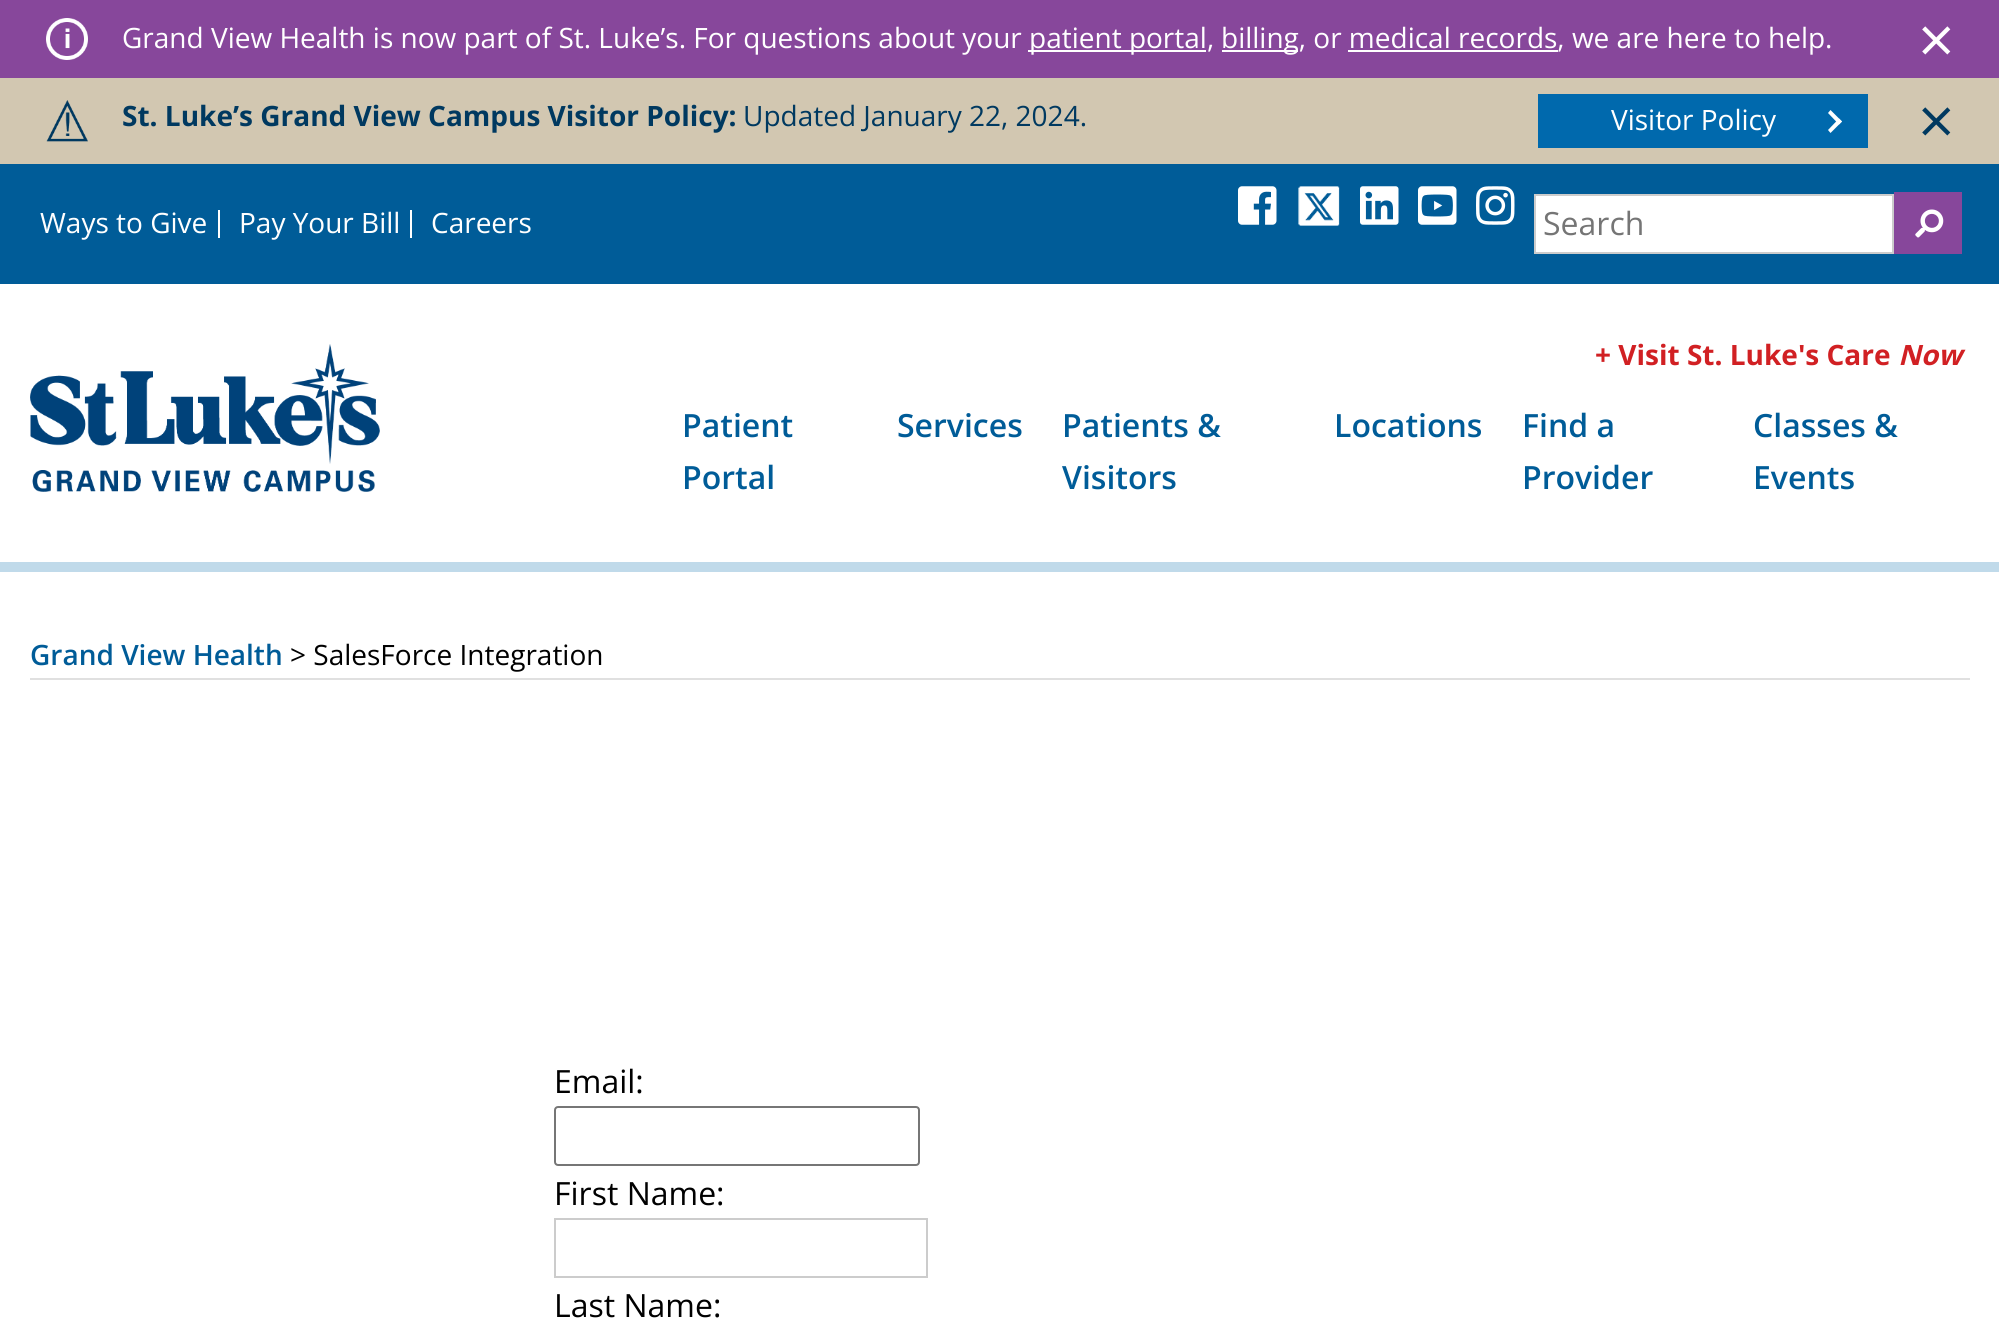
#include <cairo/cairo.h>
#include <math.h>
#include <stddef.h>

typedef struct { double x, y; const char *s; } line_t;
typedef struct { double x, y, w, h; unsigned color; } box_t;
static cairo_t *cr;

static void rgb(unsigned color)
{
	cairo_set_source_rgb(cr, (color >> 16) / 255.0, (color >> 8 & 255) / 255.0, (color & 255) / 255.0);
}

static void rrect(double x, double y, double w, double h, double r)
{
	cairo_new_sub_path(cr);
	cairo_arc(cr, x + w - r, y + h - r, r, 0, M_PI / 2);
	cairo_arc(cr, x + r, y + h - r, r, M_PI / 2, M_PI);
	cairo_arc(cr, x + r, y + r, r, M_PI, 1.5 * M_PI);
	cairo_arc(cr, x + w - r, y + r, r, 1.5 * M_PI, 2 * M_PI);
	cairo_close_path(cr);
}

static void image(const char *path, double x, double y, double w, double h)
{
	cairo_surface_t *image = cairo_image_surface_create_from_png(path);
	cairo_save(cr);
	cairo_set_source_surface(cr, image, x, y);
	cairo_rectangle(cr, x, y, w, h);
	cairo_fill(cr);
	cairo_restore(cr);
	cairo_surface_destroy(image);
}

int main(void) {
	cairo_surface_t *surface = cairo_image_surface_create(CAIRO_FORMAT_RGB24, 1999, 1323);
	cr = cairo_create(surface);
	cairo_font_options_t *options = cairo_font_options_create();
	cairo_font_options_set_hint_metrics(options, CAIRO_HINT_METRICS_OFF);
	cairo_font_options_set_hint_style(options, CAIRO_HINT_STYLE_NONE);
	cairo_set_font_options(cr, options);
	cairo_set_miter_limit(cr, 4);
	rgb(0xffffff);
	cairo_paint(cr);
	rgb(0x87479b);
	cairo_rectangle(cr, 0, 0, 1999, 78);
	cairo_fill(cr);
	image("img/1.png", 46, 18, 42, 42);
	{
		static const box_t items[] = {
			{1028, 50, 178, 2, 0xffffff},
			{1222, 50, 76, 2, 0xffffff},
			{1348, 50, 210, 2, 0xffffff},
			{0, 78, 1999, 86, 0xd2c7b1},
		};
		for (size_t i = 0; i < sizeof items / sizeof *items; i++) {
			rgb(items[i].color);
			cairo_rectangle(cr, items[i].x, items[i].y, items[i].w, items[i].h);
			cairo_fill(cr);
		}
	}
	image("img/2.png", 46, 100, 42, 42);
	rgb(0x0069ad);
	cairo_rectangle(cr, 1538, 94, 330, 54);
	cairo_fill(cr);
	rgb(0xffffff);
	cairo_new_path(cr);
	cairo_move_to(cr, 1828, 113);
	cairo_line_to(cr, 1830.5, 110);
	cairo_line_to(cr, 1842, 121.5);
	cairo_line_to(cr, 1839, 124.5);
	cairo_close_path(cr);
	cairo_fill(cr);
	cairo_new_path(cr);
	cairo_move_to(cr, 1828, 130);
	cairo_line_to(cr, 1839, 118.5);
	cairo_line_to(cr, 1842, 121.5);
	cairo_line_to(cr, 1830.5, 133);
	cairo_close_path(cr);
	cairo_fill(cr);
	{
		static const box_t items[] = {
			{0, 164, 1999, 120, 0x005c98},
			{218, 210, 2, 28, 0xffffff},
			{410, 210, 2, 28, 0xffffff},
		};
		for (size_t i = 0; i < sizeof items / sizeof *items; i++) {
			rgb(items[i].color);
			cairo_rectangle(cr, items[i].x, items[i].y, items[i].w, items[i].h);
			cairo_fill(cr);
		}
	}
	image("img/3.png", 1238, 186, 39, 39);
	image("img/4.png", 1298, 186, 42, 40);
	image("img/5.png", 1360, 186, 39, 39);
	image("img/6.png", 1418, 186, 39, 39);
	image("img/7.png", 1476, 186, 39, 39);
	cairo_rectangle(cr, 1535, 195, 358, 58);
	cairo_fill_preserve(cr);
	rgb(0xcccccc);
	cairo_stroke(cr);
	rgb(0x87479b);
	cairo_rectangle(cr, 1894, 192, 68, 62);
	cairo_fill(cr);
	image("img/8.png", 1915, 209, 29, 29);
	image("img/9.png", 30, 344, 350, 148);
	rgb(0xc0daea);
	cairo_rectangle(cr, 0, 562, 1999, 10);
	cairo_fill(cr);
	rgb(0xe0e0e0);
	cairo_rectangle(cr, 30, 678, 1940, 2);
	cairo_fill(cr);
	rrect(555, 1107, 364, 58, 3);
	rgb(0x767676);
	cairo_stroke(cr);
	cairo_rectangle(cr, 555, 1219, 372, 58);
	rgb(0xcccccc);
	cairo_stroke(cr);
	cairo_select_font_face(cr, "Open Sans", CAIRO_FONT_SLANT_NORMAL, CAIRO_FONT_WEIGHT_NORMAL);
	cairo_set_font_size(cr, 28);
	rgb(0xffffff);
	{
		static const line_t items[] = {
			{122, 48, "Grand View Health is now part of St. Luke’s. For questions about your"},
			{1029, 48, "patient portal,"},
			{1221, 48, "billing, or medical records, we are here to help."},
		};
		for (size_t i = 0; i < sizeof items / sizeof *items; i++) {
			cairo_move_to(cr, items[i].x, items[i].y);
			cairo_show_text(cr, items[i].s);
		}
	}
	cairo_set_font_size(cr, 64);
	cairo_move_to(cr, 1918, 63);
	cairo_show_text(cr, "×");
	cairo_select_font_face(cr, "Open Sans", CAIRO_FONT_SLANT_NORMAL, CAIRO_FONT_WEIGHT_BOLD);
	cairo_set_font_size(cr, 28);
	rgb(0x003960);
	cairo_move_to(cr, 122, 126);
	cairo_show_text(cr, "St. Luke’s Grand View Campus Visitor Policy:");
	cairo_select_font_face(cr, "Open Sans", CAIRO_FONT_SLANT_NORMAL, CAIRO_FONT_WEIGHT_NORMAL);
	cairo_move_to(cr, 743, 126);
	cairo_show_text(cr, "Updated January 22, 2024.");
	rgb(0xffffff);
	cairo_move_to(cr, 1611, 130);
	cairo_show_text(cr, "Visitor Policy");
	cairo_set_font_size(cr, 64);
	rgb(0x003960);
	cairo_move_to(cr, 1918, 144);
	cairo_show_text(cr, "×");
	cairo_set_font_size(cr, 28);
	rgb(0xffffff);
	{
		static const line_t items[] = {
			{40, 233, "Ways to Give"},
			{239, 233, "Pay Your Bill"},
			{431, 233, "Careers"},
		};
		for (size_t i = 0; i < sizeof items / sizeof *items; i++) {
			cairo_move_to(cr, items[i].x, items[i].y);
			cairo_show_text(cr, items[i].s);
		}
	}
	cairo_set_font_size(cr, 32);
	rgb(0x757575);
	cairo_move_to(cr, 1543, 235);
	cairo_show_text(cr, "Search");
	cairo_select_font_face(cr, "Open Sans", CAIRO_FONT_SLANT_NORMAL, CAIRO_FONT_WEIGHT_BOLD);
	cairo_set_font_size(cr, 28);
	rgb(0xd12023);
	cairo_move_to(cr, 1595, 365);
	cairo_show_text(cr, "+ Visit St. Luke's Care");
	cairo_select_font_face(cr, "Open Sans", CAIRO_FONT_SLANT_ITALIC, CAIRO_FONT_WEIGHT_BOLD);
	cairo_move_to(cr, 1898, 365);
	cairo_show_text(cr, "Now");
	cairo_select_font_face(cr, "Open Sans SemiBold", CAIRO_FONT_SLANT_NORMAL, CAIRO_FONT_WEIGHT_NORMAL);
	cairo_set_font_size(cr, 32);
	rgb(0x005c98);
	{
		static const line_t items[] = {
			{682, 437, "Patient"},
			{682, 489, "Portal"},
			{897, 437, "Services"},
			{1062, 437, "Patients &"},
			{1062, 489, "Visitors"},
			{1334, 437, "Locations"},
			{1522, 437, "Find a"},
			{1522, 489, "Provider"},
			{1753, 437, "Classes &"},
			{1753, 489, "Events"},
		};
		for (size_t i = 0; i < sizeof items / sizeof *items; i++) {
			cairo_move_to(cr, items[i].x, items[i].y);
			cairo_show_text(cr, items[i].s);
		}
	}
	cairo_set_font_size(cr, 28);
	cairo_move_to(cr, 30, 665);
	cairo_show_text(cr, "Grand View Health");
	cairo_select_font_face(cr, "Open Sans", CAIRO_FONT_SLANT_NORMAL, CAIRO_FONT_WEIGHT_NORMAL);
	rgb(0x000000);
	cairo_move_to(cr, 290, 665);
	cairo_show_text(cr, "> SalesForce Integration");
	cairo_set_font_size(cr, 32);
	{
		static const line_t items[] = {
			{554, 1093, "Email:"},
			{554, 1205, "First Name:"},
			{554, 1317, "Last Name:"},
		};
		for (size_t i = 0; i < sizeof items / sizeof *items; i++) {
			cairo_move_to(cr, items[i].x, items[i].y);
			cairo_show_text(cr, items[i].s);
		}
	}
	cairo_surface_write_to_png(surface, "page.png");
	cairo_font_options_destroy(options);
	cairo_destroy(cr);
	cairo_surface_destroy(surface);
	return 0;
}
